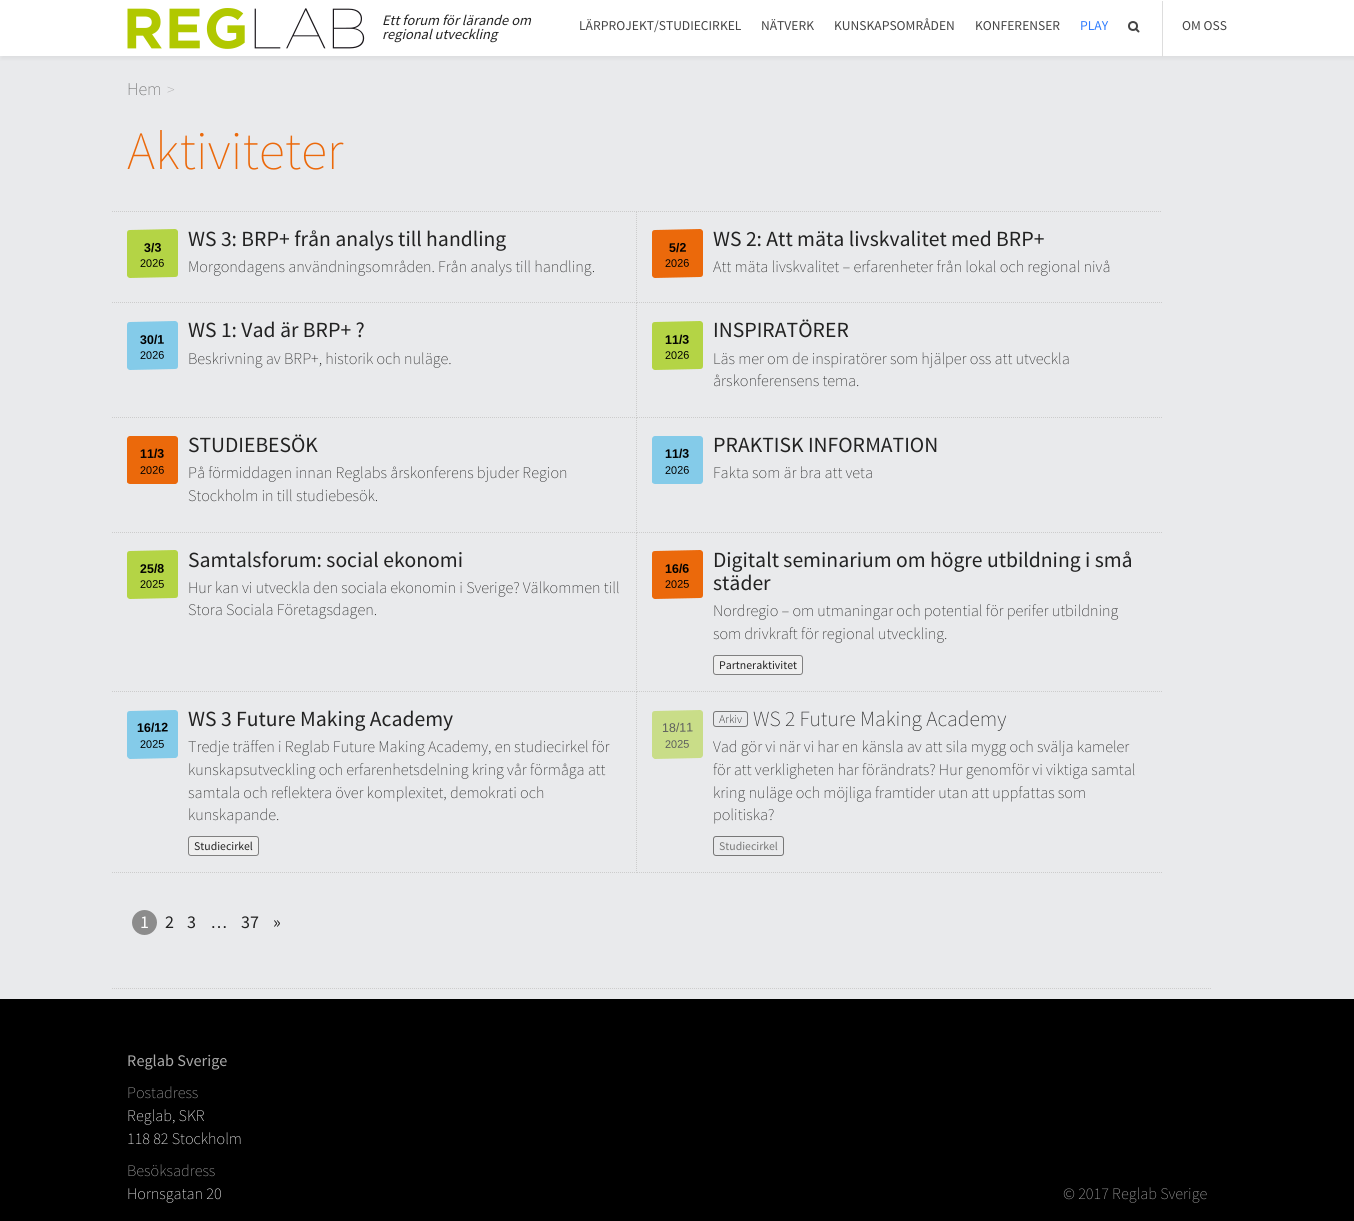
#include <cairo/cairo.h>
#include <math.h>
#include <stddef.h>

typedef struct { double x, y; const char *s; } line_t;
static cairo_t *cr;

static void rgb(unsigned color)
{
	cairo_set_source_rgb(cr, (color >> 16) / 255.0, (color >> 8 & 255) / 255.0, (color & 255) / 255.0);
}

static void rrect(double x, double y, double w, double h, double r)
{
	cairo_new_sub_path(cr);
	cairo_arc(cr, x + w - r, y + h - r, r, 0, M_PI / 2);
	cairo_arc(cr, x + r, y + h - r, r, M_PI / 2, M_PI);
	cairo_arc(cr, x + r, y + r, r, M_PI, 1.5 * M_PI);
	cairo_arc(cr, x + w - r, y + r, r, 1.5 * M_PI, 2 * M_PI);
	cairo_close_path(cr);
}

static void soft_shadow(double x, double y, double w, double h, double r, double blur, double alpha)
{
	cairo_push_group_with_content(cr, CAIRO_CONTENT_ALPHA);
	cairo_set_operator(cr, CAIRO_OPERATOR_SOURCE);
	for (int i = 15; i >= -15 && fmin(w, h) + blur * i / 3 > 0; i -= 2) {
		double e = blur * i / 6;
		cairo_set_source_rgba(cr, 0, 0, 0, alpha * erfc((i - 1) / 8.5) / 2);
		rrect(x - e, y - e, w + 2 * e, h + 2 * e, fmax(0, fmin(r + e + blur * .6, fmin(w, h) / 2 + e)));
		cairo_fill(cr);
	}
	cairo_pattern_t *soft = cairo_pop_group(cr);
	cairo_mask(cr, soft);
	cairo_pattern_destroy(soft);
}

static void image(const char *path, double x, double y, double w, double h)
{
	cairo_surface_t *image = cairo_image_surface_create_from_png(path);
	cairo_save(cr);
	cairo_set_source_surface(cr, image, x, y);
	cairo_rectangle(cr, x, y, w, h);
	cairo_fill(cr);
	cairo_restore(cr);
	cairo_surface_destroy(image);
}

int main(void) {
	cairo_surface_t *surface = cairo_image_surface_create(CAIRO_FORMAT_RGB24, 1354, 1221);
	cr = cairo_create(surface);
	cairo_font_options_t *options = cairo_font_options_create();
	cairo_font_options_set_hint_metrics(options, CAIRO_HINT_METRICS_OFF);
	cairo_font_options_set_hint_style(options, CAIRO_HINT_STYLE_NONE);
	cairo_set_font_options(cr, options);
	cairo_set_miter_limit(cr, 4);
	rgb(0xe9eaec);
	cairo_paint(cr);
	rgb(0x000000);
	soft_shadow(1, 3, 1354, 56, 0, 1.5, 0.05);
	rgb(0xffffff);
	cairo_rectangle(cr, 0, 0, 1354, 56);
	cairo_fill(cr);
	image("img/1.png", 127, 8, 238, 41);
	cairo_arc(cr, 1133, 26, 4, 0, 2 * M_PI);
	rgb(0x444444);
	cairo_stroke(cr);
	cairo_new_path(cr);
	cairo_move_to(cr, 1136, 29);
	cairo_line_to(cr, 1138.5, 31.5);
	cairo_set_line_cap(cr, CAIRO_LINE_CAP_ROUND);
	cairo_stroke(cr);
	rgb(0xdddddd);
	cairo_rectangle(cr, 1162, 1, 1, 56);
	cairo_fill(cr);
	cairo_new_path(cr);
	cairo_move_to(cr, 112, 211.5);
	cairo_line_to(cr, 1162, 211.5);
	rgb(0xcccccc);
	cairo_set_line_width(cr, 1);
	cairo_set_line_cap(cr, CAIRO_LINE_CAP_BUTT);
	cairo_set_dash(cr, (double[]){1, 1}, 2, 0);
	cairo_stroke(cr);
	cairo_new_path(cr);
	cairo_move_to(cr, 636.5, 212);
	cairo_line_to(cr, 636.5, 303);
	cairo_stroke(cr);
	cairo_new_path(cr);
	cairo_move_to(cr, 112, 302.5);
	cairo_line_to(cr, 637, 302.5);
	cairo_stroke(cr);
	rgb(0xb4d445);
	cairo_new_path(cr);
	cairo_move_to(cr, 130, 230);
	cairo_line_to(cr, 175, 229);
	cairo_curve_to(cr, 176, 229, 178, 230, 178, 232);
	cairo_line_to(cr, 178, 274);
	cairo_curve_to(cr, 178, 276, 177, 277, 175, 277);
	cairo_line_to(cr, 130, 278);
	cairo_curve_to(cr, 129, 278, 127, 277, 127, 275);
	cairo_line_to(cr, 127, 233);
	cairo_curve_to(cr, 127, 231, 128, 230, 130, 230);
	cairo_close_path(cr);
	cairo_fill(cr);
	cairo_new_path(cr);
	cairo_move_to(cr, 637, 302.5);
	cairo_line_to(cr, 1162, 302.5);
	rgb(0xcccccc);
	cairo_stroke(cr);
	rgb(0xeb690b);
	cairo_new_path(cr);
	cairo_move_to(cr, 655, 230);
	cairo_line_to(cr, 700, 229);
	cairo_curve_to(cr, 701, 229, 703, 230, 703, 232);
	cairo_line_to(cr, 703, 274);
	cairo_curve_to(cr, 703, 276, 702, 277, 700, 277);
	cairo_line_to(cr, 655, 278);
	cairo_curve_to(cr, 654, 278, 652, 277, 652, 275);
	cairo_line_to(cr, 652, 233);
	cairo_curve_to(cr, 652, 231, 653, 230, 655, 230);
	cairo_close_path(cr);
	cairo_fill(cr);
	cairo_new_path(cr);
	cairo_move_to(cr, 636.5, 303);
	cairo_line_to(cr, 636.5, 418);
	rgb(0xcccccc);
	cairo_stroke(cr);
	cairo_new_path(cr);
	cairo_move_to(cr, 112, 417.5);
	cairo_line_to(cr, 637, 417.5);
	cairo_stroke(cr);
	rgb(0x84cbe9);
	cairo_new_path(cr);
	cairo_move_to(cr, 130, 322);
	cairo_line_to(cr, 175, 321);
	cairo_curve_to(cr, 176, 321, 178, 322, 178, 324);
	cairo_line_to(cr, 178, 366);
	cairo_curve_to(cr, 178, 368, 177, 369, 175, 369);
	cairo_line_to(cr, 130, 370);
	cairo_curve_to(cr, 129, 370, 127, 369, 127, 367);
	cairo_line_to(cr, 127, 325);
	cairo_curve_to(cr, 127, 323, 128, 322, 130, 322);
	cairo_close_path(cr);
	cairo_fill(cr);
	cairo_new_path(cr);
	cairo_move_to(cr, 637, 417.5);
	cairo_line_to(cr, 1162, 417.5);
	rgb(0xcccccc);
	cairo_stroke(cr);
	rgb(0xb4d445);
	cairo_new_path(cr);
	cairo_move_to(cr, 655, 322);
	cairo_line_to(cr, 700, 321);
	cairo_curve_to(cr, 701, 321, 703, 322, 703, 324);
	cairo_line_to(cr, 703, 366);
	cairo_curve_to(cr, 703, 368, 702, 369, 700, 369);
	cairo_line_to(cr, 655, 370);
	cairo_curve_to(cr, 654, 370, 652, 369, 652, 367);
	cairo_line_to(cr, 652, 325);
	cairo_curve_to(cr, 652, 323, 653, 322, 655, 322);
	cairo_close_path(cr);
	cairo_fill(cr);
	cairo_new_path(cr);
	cairo_move_to(cr, 636.5, 418);
	cairo_line_to(cr, 636.5, 533);
	rgb(0xcccccc);
	cairo_stroke(cr);
	cairo_new_path(cr);
	cairo_move_to(cr, 112, 532.5);
	cairo_line_to(cr, 637, 532.5);
	cairo_stroke(cr);
	rgb(0xeb690b);
	cairo_new_path(cr);
	cairo_move_to(cr, 130, 436);
	cairo_line_to(cr, 175, 436);
	cairo_curve_to(cr, 176, 436, 178, 437, 178, 439);
	cairo_line_to(cr, 178, 481);
	cairo_curve_to(cr, 178, 482, 177, 484, 175, 484);
	cairo_line_to(cr, 130, 484);
	cairo_curve_to(cr, 129, 484, 127, 483, 127, 482);
	cairo_line_to(cr, 127, 439);
	cairo_curve_to(cr, 127, 438, 128, 436, 130, 436);
	cairo_close_path(cr);
	cairo_fill(cr);
	cairo_new_path(cr);
	cairo_move_to(cr, 637, 532.5);
	cairo_line_to(cr, 1162, 532.5);
	rgb(0xcccccc);
	cairo_stroke(cr);
	rgb(0x84cbe9);
	cairo_new_path(cr);
	cairo_move_to(cr, 655, 436);
	cairo_line_to(cr, 700, 436);
	cairo_curve_to(cr, 701, 436, 703, 437, 703, 439);
	cairo_line_to(cr, 703, 481);
	cairo_curve_to(cr, 703, 482, 702, 484, 700, 484);
	cairo_line_to(cr, 655, 484);
	cairo_curve_to(cr, 654, 484, 652, 483, 652, 482);
	cairo_line_to(cr, 652, 439);
	cairo_curve_to(cr, 652, 438, 653, 436, 655, 436);
	cairo_close_path(cr);
	cairo_fill(cr);
	cairo_new_path(cr);
	cairo_move_to(cr, 636.5, 533);
	cairo_line_to(cr, 636.5, 692);
	rgb(0xcccccc);
	cairo_stroke(cr);
	cairo_new_path(cr);
	cairo_move_to(cr, 112, 691.5);
	cairo_line_to(cr, 637, 691.5);
	cairo_stroke(cr);
	rgb(0xb4d445);
	cairo_new_path(cr);
	cairo_move_to(cr, 130, 551);
	cairo_line_to(cr, 175, 550);
	cairo_curve_to(cr, 176, 550, 178, 551, 178, 553);
	cairo_line_to(cr, 178, 595);
	cairo_curve_to(cr, 178, 597, 177, 598, 175, 598);
	cairo_line_to(cr, 130, 599);
	cairo_curve_to(cr, 129, 599, 127, 598, 127, 596);
	cairo_line_to(cr, 127, 554);
	cairo_curve_to(cr, 127, 552, 128, 551, 130, 551);
	cairo_close_path(cr);
	cairo_fill(cr);
	cairo_new_path(cr);
	cairo_move_to(cr, 637, 691.5);
	cairo_line_to(cr, 1162, 691.5);
	rgb(0xcccccc);
	cairo_stroke(cr);
	rgb(0xeb690b);
	cairo_new_path(cr);
	cairo_move_to(cr, 655, 551);
	cairo_line_to(cr, 700, 550);
	cairo_curve_to(cr, 701, 550, 703, 551, 703, 553);
	cairo_line_to(cr, 703, 595);
	cairo_curve_to(cr, 703, 597, 702, 598, 700, 598);
	cairo_line_to(cr, 655, 599);
	cairo_curve_to(cr, 654, 599, 652, 598, 652, 596);
	cairo_line_to(cr, 652, 554);
	cairo_curve_to(cr, 652, 552, 653, 551, 655, 551);
	cairo_close_path(cr);
	cairo_fill(cr);
	rgb(0xefefef);
	rrect(713.5, 655.5, 89, 19, 2.5);
	cairo_fill_preserve(cr);
	rgb(0x808080);
	cairo_set_dash(cr, NULL, 0, 0);
	cairo_stroke(cr);
	cairo_new_path(cr);
	cairo_move_to(cr, 636.5, 692);
	cairo_line_to(cr, 636.5, 873);
	rgb(0xcccccc);
	cairo_set_dash(cr, (double[]){1, 1}, 2, 0);
	cairo_stroke(cr);
	cairo_new_path(cr);
	cairo_move_to(cr, 112, 872.5);
	cairo_line_to(cr, 637, 872.5);
	cairo_stroke(cr);
	rgb(0x84cbe9);
	cairo_new_path(cr);
	cairo_move_to(cr, 130, 711);
	cairo_line_to(cr, 175, 710);
	cairo_curve_to(cr, 176, 710, 178, 711, 178, 713);
	cairo_line_to(cr, 178, 755);
	cairo_curve_to(cr, 178, 756, 177, 758, 175, 758);
	cairo_line_to(cr, 130, 759);
	cairo_curve_to(cr, 129, 759, 127, 757, 127, 756);
	cairo_line_to(cr, 127, 714);
	cairo_curve_to(cr, 127, 712, 128, 711, 130, 711);
	cairo_close_path(cr);
	cairo_fill(cr);
	rgb(0xefefef);
	rrect(188.5, 836.5, 70, 19, 2.5);
	cairo_fill_preserve(cr);
	rgb(0x808080);
	cairo_set_dash(cr, NULL, 0, 0);
	cairo_stroke(cr);
	cairo_new_path(cr);
	cairo_move_to(cr, 637, 872.5);
	cairo_line_to(cr, 1162, 872.5);
	rgb(0xcccccc);
	cairo_set_dash(cr, (double[]){1, 1}, 2, 0);
	cairo_stroke(cr);
	rgb(0xc9dd88);
	cairo_new_path(cr);
	cairo_move_to(cr, 655, 711);
	cairo_line_to(cr, 700, 710);
	cairo_curve_to(cr, 701, 710, 703, 711, 703, 713);
	cairo_line_to(cr, 703, 755);
	cairo_curve_to(cr, 703, 756, 702, 758, 700, 758);
	cairo_line_to(cr, 655, 759);
	cairo_curve_to(cr, 654, 759, 652, 757, 652, 756);
	cairo_line_to(cr, 652, 714);
	cairo_curve_to(cr, 652, 712, 653, 711, 655, 711);
	cairo_close_path(cr);
	cairo_fill(cr);
	rrect(713.5, 711.5, 34, 15, 2.5);
	rgb(0x777777);
	cairo_set_dash(cr, NULL, 0, 0);
	cairo_stroke(cr);
	rrect(713.5, 836.5, 70, 19, 2.5);
	cairo_stroke(cr);
	rgb(0x8c8c8c);
	cairo_arc(cr, 144.5, 922.5, 12.5, 0, 2 * M_PI);
	cairo_fill(cr);
	cairo_new_path(cr);
	cairo_move_to(cr, 112, 988.5);
	cairo_line_to(cr, 1212, 988.5);
	rgb(0xcccccc);
	cairo_set_dash(cr, (double[]){1, 1}, 2, 0);
	cairo_stroke(cr);
	rgb(0x000000);
	cairo_rectangle(cr, 0, 999, 1354, 222);
	cairo_fill(cr);
	cairo_select_font_face(cr, "Source Sans Pro", CAIRO_FONT_SLANT_ITALIC, CAIRO_FONT_WEIGHT_NORMAL);
	cairo_set_font_size(cr, 14.4);
	rgb(0x222222);
	cairo_move_to(cr, 382, 25);
	cairo_show_text(cr, "Ett forum för lärande om");
	cairo_move_to(cr, 382, 39);
	cairo_show_text(cr, "regional utveckling");
	cairo_select_font_face(cr, "Source Sans Pro", CAIRO_FONT_SLANT_NORMAL, CAIRO_FONT_WEIGHT_NORMAL);
	cairo_set_font_size(cr, 13.5);
	rgb(0x444444);
	{
		static const line_t items[] = {
			{579, 30, "LÄRPROJEKT/STUDIECIRKEL"},
			{761, 30, "NÄTVERK"},
			{834, 30, "KUNSKAPSOMRÅDEN"},
			{975, 30, "KONFERENSER"},
		};
		for (size_t i = 0; i < sizeof items / sizeof *items; i++) {
			cairo_move_to(cr, items[i].x, items[i].y);
			cairo_show_text(cr, items[i].s);
		}
	}
	rgb(0x2e7cfe);
	cairo_move_to(cr, 1080, 30);
	cairo_show_text(cr, "PLAY");
	rgb(0x444444);
	cairo_move_to(cr, 1182, 30);
	cairo_show_text(cr, "OM OSS");
	cairo_select_font_face(cr, "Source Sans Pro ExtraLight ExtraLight", CAIRO_FONT_SLANT_NORMAL, CAIRO_FONT_WEIGHT_NORMAL);
	cairo_set_font_size(cr, 18);
	rgb(0x666666);
	cairo_move_to(cr, 127, 95);
	cairo_show_text(cr, "Hem");
	cairo_set_font_size(cr, 16.2);
	rgb(0xaaaaaa);
	cairo_move_to(cr, 167, 95);
	cairo_show_text(cr, ">");
	cairo_set_font_size(cr, 54);
	rgb(0xeb690b);
	cairo_move_to(cr, 127, 169);
	cairo_show_text(cr, "Aktiviteter");
	cairo_select_font_face(cr, "Liberation Sans", CAIRO_FONT_SLANT_NORMAL, CAIRO_FONT_WEIGHT_BOLD);
	cairo_set_font_size(cr, 12.5);
	rgb(0x000000);
	cairo_save(cr);
	cairo_translate(cr, 144, 252);
	cairo_rotate(cr, -1 * M_PI / 180);
	cairo_move_to(cr, 0, 0);
	cairo_show_text(cr, "3/3");
	cairo_restore(cr);
	cairo_select_font_face(cr, "Liberation Sans", CAIRO_FONT_SLANT_NORMAL, CAIRO_FONT_WEIGHT_NORMAL);
	cairo_set_font_size(cr, 11);
	cairo_save(cr);
	cairo_translate(cr, 140, 267);
	cairo_rotate(cr, -1 * M_PI / 180);
	cairo_move_to(cr, 0, 0);
	cairo_show_text(cr, "2026");
	cairo_restore(cr);
	cairo_select_font_face(cr, "Source Sans Pro", CAIRO_FONT_SLANT_NORMAL, CAIRO_FONT_WEIGHT_NORMAL);
	cairo_set_font_size(cr, 21.6);
	rgb(0x222222);
	cairo_move_to(cr, 188, 246);
	cairo_show_text(cr, "WS 3: BRP+ från analys till handling");
	cairo_select_font_face(cr, "Source Sans Pro ExtraLight ExtraLight", CAIRO_FONT_SLANT_NORMAL, CAIRO_FONT_WEIGHT_NORMAL);
	cairo_set_font_size(cr, 16.2);
	cairo_move_to(cr, 188, 272);
	cairo_show_text(cr, "Morgondagens användningsområden. Från analys till handling.");
	cairo_select_font_face(cr, "Liberation Sans", CAIRO_FONT_SLANT_NORMAL, CAIRO_FONT_WEIGHT_BOLD);
	cairo_set_font_size(cr, 12.5);
	rgb(0x000000);
	cairo_save(cr);
	cairo_translate(cr, 669, 252);
	cairo_rotate(cr, -1 * M_PI / 180);
	cairo_move_to(cr, 0, 0);
	cairo_show_text(cr, "5/2");
	cairo_restore(cr);
	cairo_select_font_face(cr, "Liberation Sans", CAIRO_FONT_SLANT_NORMAL, CAIRO_FONT_WEIGHT_NORMAL);
	cairo_set_font_size(cr, 11);
	cairo_save(cr);
	cairo_translate(cr, 665, 267);
	cairo_rotate(cr, -1 * M_PI / 180);
	cairo_move_to(cr, 0, 0);
	cairo_show_text(cr, "2026");
	cairo_restore(cr);
	cairo_select_font_face(cr, "Source Sans Pro", CAIRO_FONT_SLANT_NORMAL, CAIRO_FONT_WEIGHT_NORMAL);
	cairo_set_font_size(cr, 21.6);
	rgb(0x222222);
	cairo_move_to(cr, 713, 246);
	cairo_show_text(cr, "WS 2: Att mäta livskvalitet med BRP+");
	cairo_select_font_face(cr, "Source Sans Pro ExtraLight ExtraLight", CAIRO_FONT_SLANT_NORMAL, CAIRO_FONT_WEIGHT_NORMAL);
	cairo_set_font_size(cr, 16.2);
	cairo_move_to(cr, 713, 272);
	cairo_show_text(cr, "Att mäta livskvalitet – erfarenheter från lokal och regional nivå");
	cairo_select_font_face(cr, "Liberation Sans", CAIRO_FONT_SLANT_NORMAL, CAIRO_FONT_WEIGHT_BOLD);
	cairo_set_font_size(cr, 12.5);
	rgb(0x000000);
	cairo_save(cr);
	cairo_translate(cr, 140, 344);
	cairo_rotate(cr, -1 * M_PI / 180);
	cairo_move_to(cr, 0, 0);
	cairo_show_text(cr, "30/1");
	cairo_restore(cr);
	cairo_select_font_face(cr, "Liberation Sans", CAIRO_FONT_SLANT_NORMAL, CAIRO_FONT_WEIGHT_NORMAL);
	cairo_set_font_size(cr, 11);
	cairo_save(cr);
	cairo_translate(cr, 140, 359);
	cairo_rotate(cr, -1 * M_PI / 180);
	cairo_move_to(cr, 0, 0);
	cairo_show_text(cr, "2026");
	cairo_restore(cr);
	cairo_select_font_face(cr, "Source Sans Pro", CAIRO_FONT_SLANT_NORMAL, CAIRO_FONT_WEIGHT_NORMAL);
	cairo_set_font_size(cr, 21.6);
	rgb(0x222222);
	cairo_move_to(cr, 188, 337);
	cairo_show_text(cr, "WS 1: Vad är BRP+ ?");
	cairo_select_font_face(cr, "Source Sans Pro ExtraLight ExtraLight", CAIRO_FONT_SLANT_NORMAL, CAIRO_FONT_WEIGHT_NORMAL);
	cairo_set_font_size(cr, 16.2);
	cairo_move_to(cr, 188, 364);
	cairo_show_text(cr, "Beskrivning av BRP+, historik och nuläge.");
	cairo_select_font_face(cr, "Liberation Sans", CAIRO_FONT_SLANT_NORMAL, CAIRO_FONT_WEIGHT_BOLD);
	cairo_set_font_size(cr, 12.5);
	rgb(0x000000);
	cairo_save(cr);
	cairo_translate(cr, 665, 344);
	cairo_rotate(cr, -1 * M_PI / 180);
	cairo_move_to(cr, 0, 0);
	cairo_show_text(cr, "11/3");
	cairo_restore(cr);
	cairo_select_font_face(cr, "Liberation Sans", CAIRO_FONT_SLANT_NORMAL, CAIRO_FONT_WEIGHT_NORMAL);
	cairo_set_font_size(cr, 11);
	cairo_save(cr);
	cairo_translate(cr, 665, 359);
	cairo_rotate(cr, -1 * M_PI / 180);
	cairo_move_to(cr, 0, 0);
	cairo_show_text(cr, "2026");
	cairo_restore(cr);
	cairo_select_font_face(cr, "Source Sans Pro", CAIRO_FONT_SLANT_NORMAL, CAIRO_FONT_WEIGHT_NORMAL);
	cairo_set_font_size(cr, 21.6);
	rgb(0x222222);
	cairo_move_to(cr, 713, 337);
	cairo_show_text(cr, "INSPIRATÖRER");
	cairo_select_font_face(cr, "Source Sans Pro ExtraLight ExtraLight", CAIRO_FONT_SLANT_NORMAL, CAIRO_FONT_WEIGHT_NORMAL);
	cairo_set_font_size(cr, 16.2);
	cairo_move_to(cr, 713, 364);
	cairo_show_text(cr, "Läs mer om de inspiratörer som hjälper oss att utveckla");
	cairo_move_to(cr, 713, 386);
	cairo_show_text(cr, "årskonferensens tema.");
	cairo_select_font_face(cr, "Liberation Sans", CAIRO_FONT_SLANT_NORMAL, CAIRO_FONT_WEIGHT_BOLD);
	cairo_set_font_size(cr, 12.5);
	rgb(0x000000);
	cairo_save(cr);
	cairo_translate(cr, 140, 458);
	cairo_rotate(cr, -1 * M_PI / 180);
	cairo_move_to(cr, 0, 0);
	cairo_show_text(cr, "11/3");
	cairo_restore(cr);
	cairo_select_font_face(cr, "Liberation Sans", CAIRO_FONT_SLANT_NORMAL, CAIRO_FONT_WEIGHT_NORMAL);
	cairo_set_font_size(cr, 11);
	cairo_save(cr);
	cairo_translate(cr, 140, 474);
	cairo_rotate(cr, -1 * M_PI / 180);
	cairo_move_to(cr, 0, 0);
	cairo_show_text(cr, "2026");
	cairo_restore(cr);
	cairo_select_font_face(cr, "Source Sans Pro", CAIRO_FONT_SLANT_NORMAL, CAIRO_FONT_WEIGHT_NORMAL);
	cairo_set_font_size(cr, 21.6);
	rgb(0x222222);
	cairo_move_to(cr, 188, 452);
	cairo_show_text(cr, "STUDIEBESÖK");
	cairo_select_font_face(cr, "Source Sans Pro ExtraLight ExtraLight", CAIRO_FONT_SLANT_NORMAL, CAIRO_FONT_WEIGHT_NORMAL);
	cairo_set_font_size(cr, 16.2);
	cairo_move_to(cr, 188, 478);
	cairo_show_text(cr, "På förmiddagen innan Reglabs årskonferens bjuder Region");
	cairo_move_to(cr, 188, 501);
	cairo_show_text(cr, "Stockholm in till studiebesök.");
	cairo_select_font_face(cr, "Liberation Sans", CAIRO_FONT_SLANT_NORMAL, CAIRO_FONT_WEIGHT_BOLD);
	cairo_set_font_size(cr, 12.5);
	rgb(0x000000);
	cairo_save(cr);
	cairo_translate(cr, 665, 458);
	cairo_rotate(cr, -1 * M_PI / 180);
	cairo_move_to(cr, 0, 0);
	cairo_show_text(cr, "11/3");
	cairo_restore(cr);
	cairo_select_font_face(cr, "Liberation Sans", CAIRO_FONT_SLANT_NORMAL, CAIRO_FONT_WEIGHT_NORMAL);
	cairo_set_font_size(cr, 11);
	cairo_save(cr);
	cairo_translate(cr, 665, 474);
	cairo_rotate(cr, -1 * M_PI / 180);
	cairo_move_to(cr, 0, 0);
	cairo_show_text(cr, "2026");
	cairo_restore(cr);
	cairo_select_font_face(cr, "Source Sans Pro", CAIRO_FONT_SLANT_NORMAL, CAIRO_FONT_WEIGHT_NORMAL);
	cairo_set_font_size(cr, 21.6);
	rgb(0x222222);
	cairo_move_to(cr, 713, 452);
	cairo_show_text(cr, "PRAKTISK INFORMATION");
	cairo_select_font_face(cr, "Source Sans Pro ExtraLight ExtraLight", CAIRO_FONT_SLANT_NORMAL, CAIRO_FONT_WEIGHT_NORMAL);
	cairo_set_font_size(cr, 16.2);
	cairo_move_to(cr, 713, 478);
	cairo_show_text(cr, "Fakta som är bra att veta");
	cairo_select_font_face(cr, "Liberation Sans", CAIRO_FONT_SLANT_NORMAL, CAIRO_FONT_WEIGHT_BOLD);
	cairo_set_font_size(cr, 12.5);
	rgb(0x000000);
	cairo_save(cr);
	cairo_translate(cr, 140, 573);
	cairo_rotate(cr, -1 * M_PI / 180);
	cairo_move_to(cr, 0, 0);
	cairo_show_text(cr, "25/8");
	cairo_restore(cr);
	cairo_select_font_face(cr, "Liberation Sans", CAIRO_FONT_SLANT_NORMAL, CAIRO_FONT_WEIGHT_NORMAL);
	cairo_set_font_size(cr, 11);
	cairo_save(cr);
	cairo_translate(cr, 140, 588);
	cairo_rotate(cr, -1 * M_PI / 180);
	cairo_move_to(cr, 0, 0);
	cairo_show_text(cr, "2025");
	cairo_restore(cr);
	cairo_select_font_face(cr, "Source Sans Pro", CAIRO_FONT_SLANT_NORMAL, CAIRO_FONT_WEIGHT_NORMAL);
	cairo_set_font_size(cr, 21.6);
	rgb(0x222222);
	cairo_move_to(cr, 188, 567);
	cairo_show_text(cr, "Samtalsforum: social ekonomi");
	cairo_select_font_face(cr, "Source Sans Pro ExtraLight ExtraLight", CAIRO_FONT_SLANT_NORMAL, CAIRO_FONT_WEIGHT_NORMAL);
	cairo_set_font_size(cr, 16.2);
	cairo_move_to(cr, 188, 593);
	cairo_show_text(cr, "Hur kan vi utveckla den sociala ekonomin i Sverige? Välkommen till");
	cairo_move_to(cr, 188, 615);
	cairo_show_text(cr, "Stora Sociala Företagsdagen.");
	cairo_select_font_face(cr, "Liberation Sans", CAIRO_FONT_SLANT_NORMAL, CAIRO_FONT_WEIGHT_BOLD);
	cairo_set_font_size(cr, 12.5);
	rgb(0x000000);
	cairo_save(cr);
	cairo_translate(cr, 665, 573);
	cairo_rotate(cr, -1 * M_PI / 180);
	cairo_move_to(cr, 0, 0);
	cairo_show_text(cr, "16/6");
	cairo_restore(cr);
	cairo_select_font_face(cr, "Liberation Sans", CAIRO_FONT_SLANT_NORMAL, CAIRO_FONT_WEIGHT_NORMAL);
	cairo_set_font_size(cr, 11);
	cairo_save(cr);
	cairo_translate(cr, 665, 588);
	cairo_rotate(cr, -1 * M_PI / 180);
	cairo_move_to(cr, 0, 0);
	cairo_show_text(cr, "2025");
	cairo_restore(cr);
	cairo_select_font_face(cr, "Source Sans Pro", CAIRO_FONT_SLANT_NORMAL, CAIRO_FONT_WEIGHT_NORMAL);
	cairo_set_font_size(cr, 21.6);
	rgb(0x222222);
	cairo_move_to(cr, 713, 567);
	cairo_show_text(cr, "Digitalt seminarium om högre utbildning i små");
	cairo_move_to(cr, 713, 590);
	cairo_show_text(cr, "städer");
	cairo_select_font_face(cr, "Source Sans Pro ExtraLight ExtraLight", CAIRO_FONT_SLANT_NORMAL, CAIRO_FONT_WEIGHT_NORMAL);
	cairo_set_font_size(cr, 16.2);
	cairo_move_to(cr, 713, 616);
	cairo_show_text(cr, "Nordregio – om utmaningar och potential för perifer utbildning");
	cairo_move_to(cr, 713, 639);
	cairo_show_text(cr, "som drivkraft för regional utveckling.");
	cairo_select_font_face(cr, "Source Sans Pro", CAIRO_FONT_SLANT_NORMAL, CAIRO_FONT_WEIGHT_NORMAL);
	cairo_set_font_size(cr, 11.75);
	cairo_move_to(cr, 719, 669);
	cairo_show_text(cr, "Partneraktivitet");
	cairo_select_font_face(cr, "Liberation Sans", CAIRO_FONT_SLANT_NORMAL, CAIRO_FONT_WEIGHT_BOLD);
	cairo_set_font_size(cr, 12.5);
	rgb(0x000000);
	cairo_save(cr);
	cairo_translate(cr, 137, 732);
	cairo_rotate(cr, -1 * M_PI / 180);
	cairo_move_to(cr, 0, 0);
	cairo_show_text(cr, "16/12");
	cairo_restore(cr);
	cairo_select_font_face(cr, "Liberation Sans", CAIRO_FONT_SLANT_NORMAL, CAIRO_FONT_WEIGHT_NORMAL);
	cairo_set_font_size(cr, 11);
	cairo_save(cr);
	cairo_translate(cr, 140, 748);
	cairo_rotate(cr, -1 * M_PI / 180);
	cairo_move_to(cr, 0, 0);
	cairo_show_text(cr, "2025");
	cairo_restore(cr);
	cairo_select_font_face(cr, "Source Sans Pro", CAIRO_FONT_SLANT_NORMAL, CAIRO_FONT_WEIGHT_NORMAL);
	cairo_set_font_size(cr, 21.6);
	rgb(0x222222);
	cairo_move_to(cr, 188, 726);
	cairo_show_text(cr, "WS 3 Future Making Academy");
	cairo_select_font_face(cr, "Source Sans Pro ExtraLight ExtraLight", CAIRO_FONT_SLANT_NORMAL, CAIRO_FONT_WEIGHT_NORMAL);
	cairo_set_font_size(cr, 16.2);
	{
		static const line_t items[] = {
			{188, 752, "Tredje träffen i Reglab Future Making Academy, en studiecirkel för"},
			{188, 775, "kunskapsutveckling och erfarenhetsdelning kring vår förmåga att"},
			{188, 798, "samtala och reflektera över komplexitet, demokrati och"},
			{188, 820, "kunskapande."},
		};
		for (size_t i = 0; i < sizeof items / sizeof *items; i++) {
			cairo_move_to(cr, items[i].x, items[i].y);
			cairo_show_text(cr, items[i].s);
		}
	}
	cairo_select_font_face(cr, "Source Sans Pro", CAIRO_FONT_SLANT_NORMAL, CAIRO_FONT_WEIGHT_NORMAL);
	cairo_set_font_size(cr, 11.75);
	cairo_move_to(cr, 194, 850);
	cairo_show_text(cr, "Studiecirkel");
	cairo_select_font_face(cr, "Liberation Sans", CAIRO_FONT_SLANT_NORMAL, CAIRO_FONT_WEIGHT_NORMAL);
	cairo_set_font_size(cr, 12.5);
	rgb(0x5d5e5e);
	cairo_save(cr);
	cairo_translate(cr, 662, 732);
	cairo_rotate(cr, -1 * M_PI / 180);
	cairo_move_to(cr, 0, 0);
	cairo_show_text(cr, "18/11");
	cairo_restore(cr);
	cairo_set_font_size(cr, 11);
	cairo_save(cr);
	cairo_translate(cr, 665, 748);
	cairo_rotate(cr, -1 * M_PI / 180);
	cairo_move_to(cr, 0, 0);
	cairo_show_text(cr, "2025");
	cairo_restore(cr);
	cairo_select_font_face(cr, "Source Sans Pro ExtraLight ExtraLight", CAIRO_FONT_SLANT_NORMAL, CAIRO_FONT_WEIGHT_NORMAL);
	cairo_set_font_size(cr, 12);
	rgb(0x000000);
	cairo_move_to(cr, 719, 723);
	cairo_show_text(cr, "Arkiv");
	cairo_set_font_size(cr, 21.6);
	rgb(0x222222);
	cairo_move_to(cr, 753, 726);
	cairo_show_text(cr, "WS 2 Future Making Academy");
	cairo_set_font_size(cr, 16.2);
	{
		static const line_t items[] = {
			{713, 752, "Vad gör vi när vi har en känsla av att sila mygg och svälja kameler"},
			{713, 775, "för att verkligheten har förändrats? Hur genomför vi viktiga samtal"},
			{713, 798, "kring nuläge och möjliga framtider utan att uppfattas som"},
			{713, 820, "politiska?"},
		};
		for (size_t i = 0; i < sizeof items / sizeof *items; i++) {
			cairo_move_to(cr, items[i].x, items[i].y);
			cairo_show_text(cr, items[i].s);
		}
	}
	cairo_select_font_face(cr, "Source Sans Pro", CAIRO_FONT_SLANT_NORMAL, CAIRO_FONT_WEIGHT_NORMAL);
	cairo_set_font_size(cr, 11.75);
	rgb(0x777777);
	cairo_move_to(cr, 719, 850);
	cairo_show_text(cr, "Studiecirkel");
	cairo_set_font_size(cr, 18);
	rgb(0xffffff);
	cairo_move_to(cr, 140, 928);
	cairo_show_text(cr, "1");
	rgb(0x222222);
	cairo_move_to(cr, 165, 928);
	cairo_show_text(cr, "2");
	cairo_move_to(cr, 187, 928);
	cairo_show_text(cr, "3");
	cairo_select_font_face(cr, "Liberation Sans", CAIRO_FONT_SLANT_NORMAL, CAIRO_FONT_WEIGHT_NORMAL);
	cairo_move_to(cr, 210, 928);
	cairo_show_text(cr, "…");
	cairo_select_font_face(cr, "Source Sans Pro", CAIRO_FONT_SLANT_NORMAL, CAIRO_FONT_WEIGHT_NORMAL);
	cairo_move_to(cr, 241, 928);
	cairo_show_text(cr, "37");
	cairo_move_to(cr, 273, 928);
	cairo_show_text(cr, "»");
	cairo_set_font_size(cr, 16.2);
	rgb(0xaaaaaa);
	cairo_move_to(cr, 127, 1066);
	cairo_show_text(cr, "Reglab Sverige");
	cairo_select_font_face(cr, "Source Sans Pro ExtraLight ExtraLight", CAIRO_FONT_SLANT_NORMAL, CAIRO_FONT_WEIGHT_NORMAL);
	cairo_move_to(cr, 127, 1098);
	cairo_show_text(cr, "Postadress");
	rgb(0xffffff);
	cairo_move_to(cr, 127, 1121);
	cairo_show_text(cr, "Reglab, SKR");
	cairo_move_to(cr, 127, 1144);
	cairo_show_text(cr, "118 82 Stockholm");
	rgb(0xaaaaaa);
	cairo_move_to(cr, 127, 1176);
	cairo_show_text(cr, "Besöksadress");
	rgb(0xffffff);
	cairo_move_to(cr, 127, 1199);
	cairo_show_text(cr, "Hornsgatan 20");
	rgb(0xaaaaaa);
	cairo_move_to(cr, 1063, 1199);
	cairo_show_text(cr, "© 2017 Reglab Sverige");
	cairo_surface_write_to_png(surface, "page.png");
	cairo_font_options_destroy(options);
	cairo_destroy(cr);
	cairo_surface_destroy(surface);
	return 0;
}
